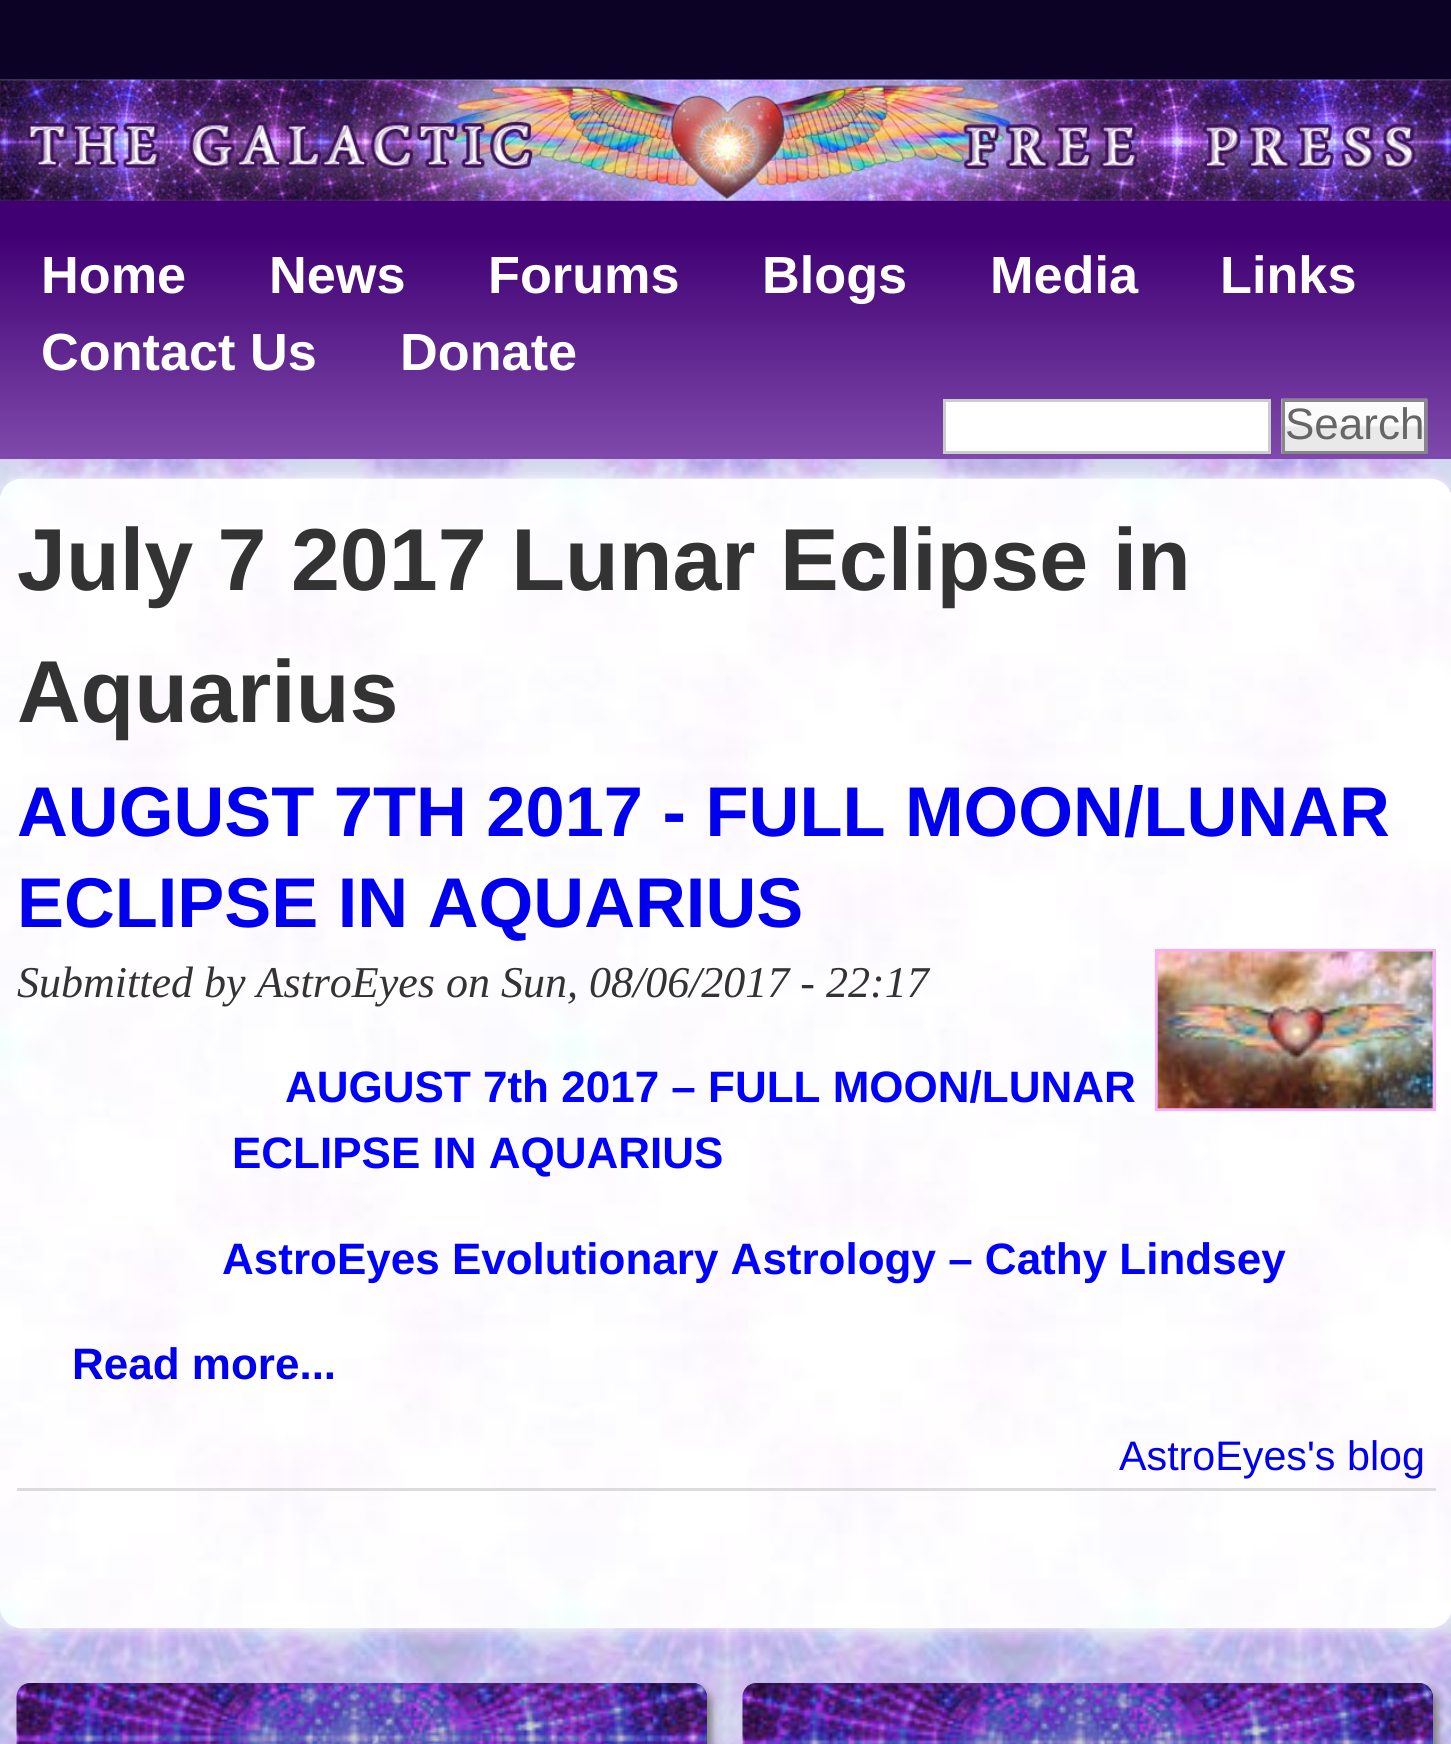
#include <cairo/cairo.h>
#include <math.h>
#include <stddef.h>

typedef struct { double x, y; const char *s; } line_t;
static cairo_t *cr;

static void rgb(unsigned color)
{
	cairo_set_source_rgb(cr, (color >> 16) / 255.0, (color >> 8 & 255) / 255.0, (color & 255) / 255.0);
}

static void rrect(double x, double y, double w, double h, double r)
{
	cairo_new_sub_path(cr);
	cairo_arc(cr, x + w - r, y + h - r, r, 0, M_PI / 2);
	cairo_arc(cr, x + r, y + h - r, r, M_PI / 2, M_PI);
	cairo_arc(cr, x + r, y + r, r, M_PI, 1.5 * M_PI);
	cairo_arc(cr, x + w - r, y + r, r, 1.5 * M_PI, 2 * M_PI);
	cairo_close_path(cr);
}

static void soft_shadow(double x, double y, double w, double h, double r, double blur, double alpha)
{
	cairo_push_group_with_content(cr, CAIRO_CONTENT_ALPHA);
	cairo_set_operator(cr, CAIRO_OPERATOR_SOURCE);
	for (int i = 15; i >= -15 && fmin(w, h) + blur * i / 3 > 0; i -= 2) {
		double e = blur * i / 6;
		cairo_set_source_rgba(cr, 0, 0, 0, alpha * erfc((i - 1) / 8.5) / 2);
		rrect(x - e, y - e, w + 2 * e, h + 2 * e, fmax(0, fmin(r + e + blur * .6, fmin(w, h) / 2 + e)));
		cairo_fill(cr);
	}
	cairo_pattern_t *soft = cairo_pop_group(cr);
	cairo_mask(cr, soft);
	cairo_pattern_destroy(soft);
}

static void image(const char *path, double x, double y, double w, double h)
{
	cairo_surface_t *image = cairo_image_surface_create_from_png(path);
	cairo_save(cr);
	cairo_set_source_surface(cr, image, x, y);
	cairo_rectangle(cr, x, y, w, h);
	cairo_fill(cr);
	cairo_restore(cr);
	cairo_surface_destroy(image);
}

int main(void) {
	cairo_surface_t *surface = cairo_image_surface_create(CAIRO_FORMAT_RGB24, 1451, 1744);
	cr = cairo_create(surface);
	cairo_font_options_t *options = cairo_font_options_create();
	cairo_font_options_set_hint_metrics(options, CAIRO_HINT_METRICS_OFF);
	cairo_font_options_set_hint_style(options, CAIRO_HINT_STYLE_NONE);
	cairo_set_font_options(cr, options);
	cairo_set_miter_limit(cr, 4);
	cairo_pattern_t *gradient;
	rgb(0x0b0225);
	cairo_paint(cr);
	image("img/1.png", 0, 79, 1451, 1665);
	rgb(0x400073);
	cairo_rectangle(cr, 0, 200, 1451, 34);
	cairo_fill(cr);
	image("img/2.png", 0, 79, 1451, 122);
	gradient = cairo_pattern_create_linear(726, 234, 726, 459);
	cairo_pattern_add_color_stop_rgba(gradient, 0, 0.251, 0, 0.451, 1);
	cairo_pattern_add_color_stop_rgba(gradient, 1, 0.498, 0.29, 0.671, 1);
	cairo_set_source(cr, gradient);
	cairo_pattern_destroy(gradient);
	cairo_rectangle(cr, 0, 234, 1451, 225);
	cairo_fill(cr);
	rgb(0xffffff);
	cairo_rectangle(cr, 944.5, 400.5, 325, 52);
	cairo_fill_preserve(cr);
	rgb(0xcccccc);
	cairo_set_line_width(cr, 3);
	cairo_stroke(cr);
	image("img/3.png", 1281, 398, 147, 56);
	cairo_rectangle(cr, 1283.5, 400.5, 142, 52);
	rgb(0x888888);
	cairo_stroke(cr);
	rgb(0xffffff);
	soft_shadow(0, 479, 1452, 1149, 22, 8, 1);
	rgb(0xffffff);
	rrect(0, 479, 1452, 1149, 22);
	cairo_fill(cr);
	image("img/4.png", 0, 478, 1451, 1150);
	rgb(0xdcdcdc);
	cairo_rectangle(cr, 17, 1488, 1419, 3);
	cairo_fill(cr);
	cairo_rectangle(cr, 1156.5, 950.5, 278, 159);
	rgb(0xffaaff);
	cairo_stroke(cr);
	image("img/5.png", 1157, 951, 276, 158);
	cairo_save(cr);
	cairo_rectangle(cr, 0, 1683, 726, 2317);
	cairo_clip(cr);
	rgb(0x808080);
	soft_shadow(22, 1689, 690, 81, 14, 4, 1);
	cairo_restore(cr);
	image("img/6.png", 16, 1683, 691, 61);
	rgb(0x400073);
	cairo_new_path(cr);
	cairo_move_to(cr, 31, 1683);
	cairo_line_to(cr, 693, 1683);
	cairo_curve_to(cr, 700.5, 1683, 707, 1689.5, 707, 1697);
	cairo_line_to(cr, 707, 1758);
	cairo_line_to(cr, 17, 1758);
	cairo_line_to(cr, 17, 1697);
	cairo_curve_to(cr, 17, 1689.5, 23.5, 1683, 31, 1683);
	cairo_close_path(cr);
	cairo_fill(cr);
	image("img/7.png", 16, 1683, 691, 61);
	cairo_save(cr);
	cairo_rectangle(cr, 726, 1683, 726, 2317);
	cairo_clip(cr);
	rgb(0x808080);
	soft_shadow(748, 1689, 690, 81, 14, 4, 1);
	cairo_restore(cr);
	image("img/8.png", 742, 1683, 691, 61);
	cairo_new_path(cr);
	cairo_move_to(cr, 757, 1683);
	cairo_line_to(cr, 1419, 1683);
	cairo_curve_to(cr, 1426.5, 1683, 1433, 1689.5, 1433, 1697);
	cairo_line_to(cr, 1433, 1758);
	cairo_line_to(cr, 743, 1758);
	cairo_line_to(cr, 743, 1697);
	cairo_curve_to(cr, 743, 1689.5, 749.5, 1683, 757, 1683);
	cairo_close_path(cr);
	cairo_fill(cr);
	image("img/9.png", 742, 1683, 691, 61);
	cairo_select_font_face(cr, "Liberation Sans", CAIRO_FONT_SLANT_NORMAL, CAIRO_FONT_WEIGHT_BOLD);
	cairo_set_font_size(cr, 52.25);
	rgb(0xfffffe);
	{
		static const line_t items[] = {
			{41, 293, "Home"},
			{269, 293, "News"},
			{488, 293, "Forums"},
			{762, 293, "Blogs"},
			{990, 293, "Media"},
			{1220, 293, "Links"},
			{41, 370, "Contact Us"},
			{400, 370, "Donate"},
		};
		for (size_t i = 0; i < sizeof items / sizeof *items; i++) {
			cairo_move_to(cr, items[i].x, items[i].y);
			cairo_show_text(cr, items[i].s);
		}
	}
	cairo_select_font_face(cr, "Liberation Sans", CAIRO_FONT_SLANT_NORMAL, CAIRO_FONT_WEIGHT_NORMAL);
	cairo_set_font_size(cr, 44);
	rgb(0x666666);
	cairo_move_to(cr, 1285, 439);
	cairo_show_text(cr, "Search");
	cairo_select_font_face(cr, "Liberation Sans", CAIRO_FONT_SLANT_NORMAL, CAIRO_FONT_WEIGHT_BOLD);
	cairo_set_font_size(cr, 88);
	rgb(0x333333);
	cairo_move_to(cr, 17, 590);
	cairo_show_text(cr, "July 7 2017 Lunar Eclipse in");
	cairo_move_to(cr, 17, 722);
	cairo_show_text(cr, "Aquarius");
	cairo_set_font_size(cr, 70.4);
	rgb(0x0000ee);
	cairo_move_to(cr, 17, 836);
	cairo_show_text(cr, "AUGUST 7TH 2017 - FULL MOON/LUNAR");
	cairo_move_to(cr, 17, 927);
	cairo_show_text(cr, "ECLIPSE IN AQUARIUS");
	cairo_select_font_face(cr, "Liberation Serif", CAIRO_FONT_SLANT_ITALIC, CAIRO_FONT_WEIGHT_NORMAL);
	cairo_set_font_size(cr, 44);
	rgb(0x333333);
	cairo_move_to(cr, 17, 997);
	cairo_show_text(cr, "Submitted by AstroEyes on Sun, 08/06/2017 - 22:17");
	cairo_select_font_face(cr, "Liberation Sans", CAIRO_FONT_SLANT_NORMAL, CAIRO_FONT_WEIGHT_BOLD);
	rgb(0x0000ff);
	{
		static const line_t items[] = {
			{285, 1102, "AUGUST 7th 2017 – FULL MOON/LUNAR"},
			{232, 1168, "ECLIPSE IN AQUARIUS"},
			{222, 1274, "AstroEyes Evolutionary Astrology – Cathy Lindsey"},
		};
		for (size_t i = 0; i < sizeof items / sizeof *items; i++) {
			cairo_move_to(cr, items[i].x, items[i].y);
			cairo_show_text(cr, items[i].s);
		}
	}
	rgb(0x0000ee);
	cairo_move_to(cr, 72, 1379);
	cairo_show_text(cr, "Read more...");
	cairo_select_font_face(cr, "Liberation Sans", CAIRO_FONT_SLANT_NORMAL, CAIRO_FONT_WEIGHT_NORMAL);
	cairo_set_font_size(cr, 41.25);
	cairo_move_to(cr, 1119, 1470);
	cairo_show_text(cr, "AstroEyes's blog");
	cairo_surface_write_to_png(surface, "page.png");
	cairo_font_options_destroy(options);
	cairo_destroy(cr);
	cairo_surface_destroy(surface);
	return 0;
}
